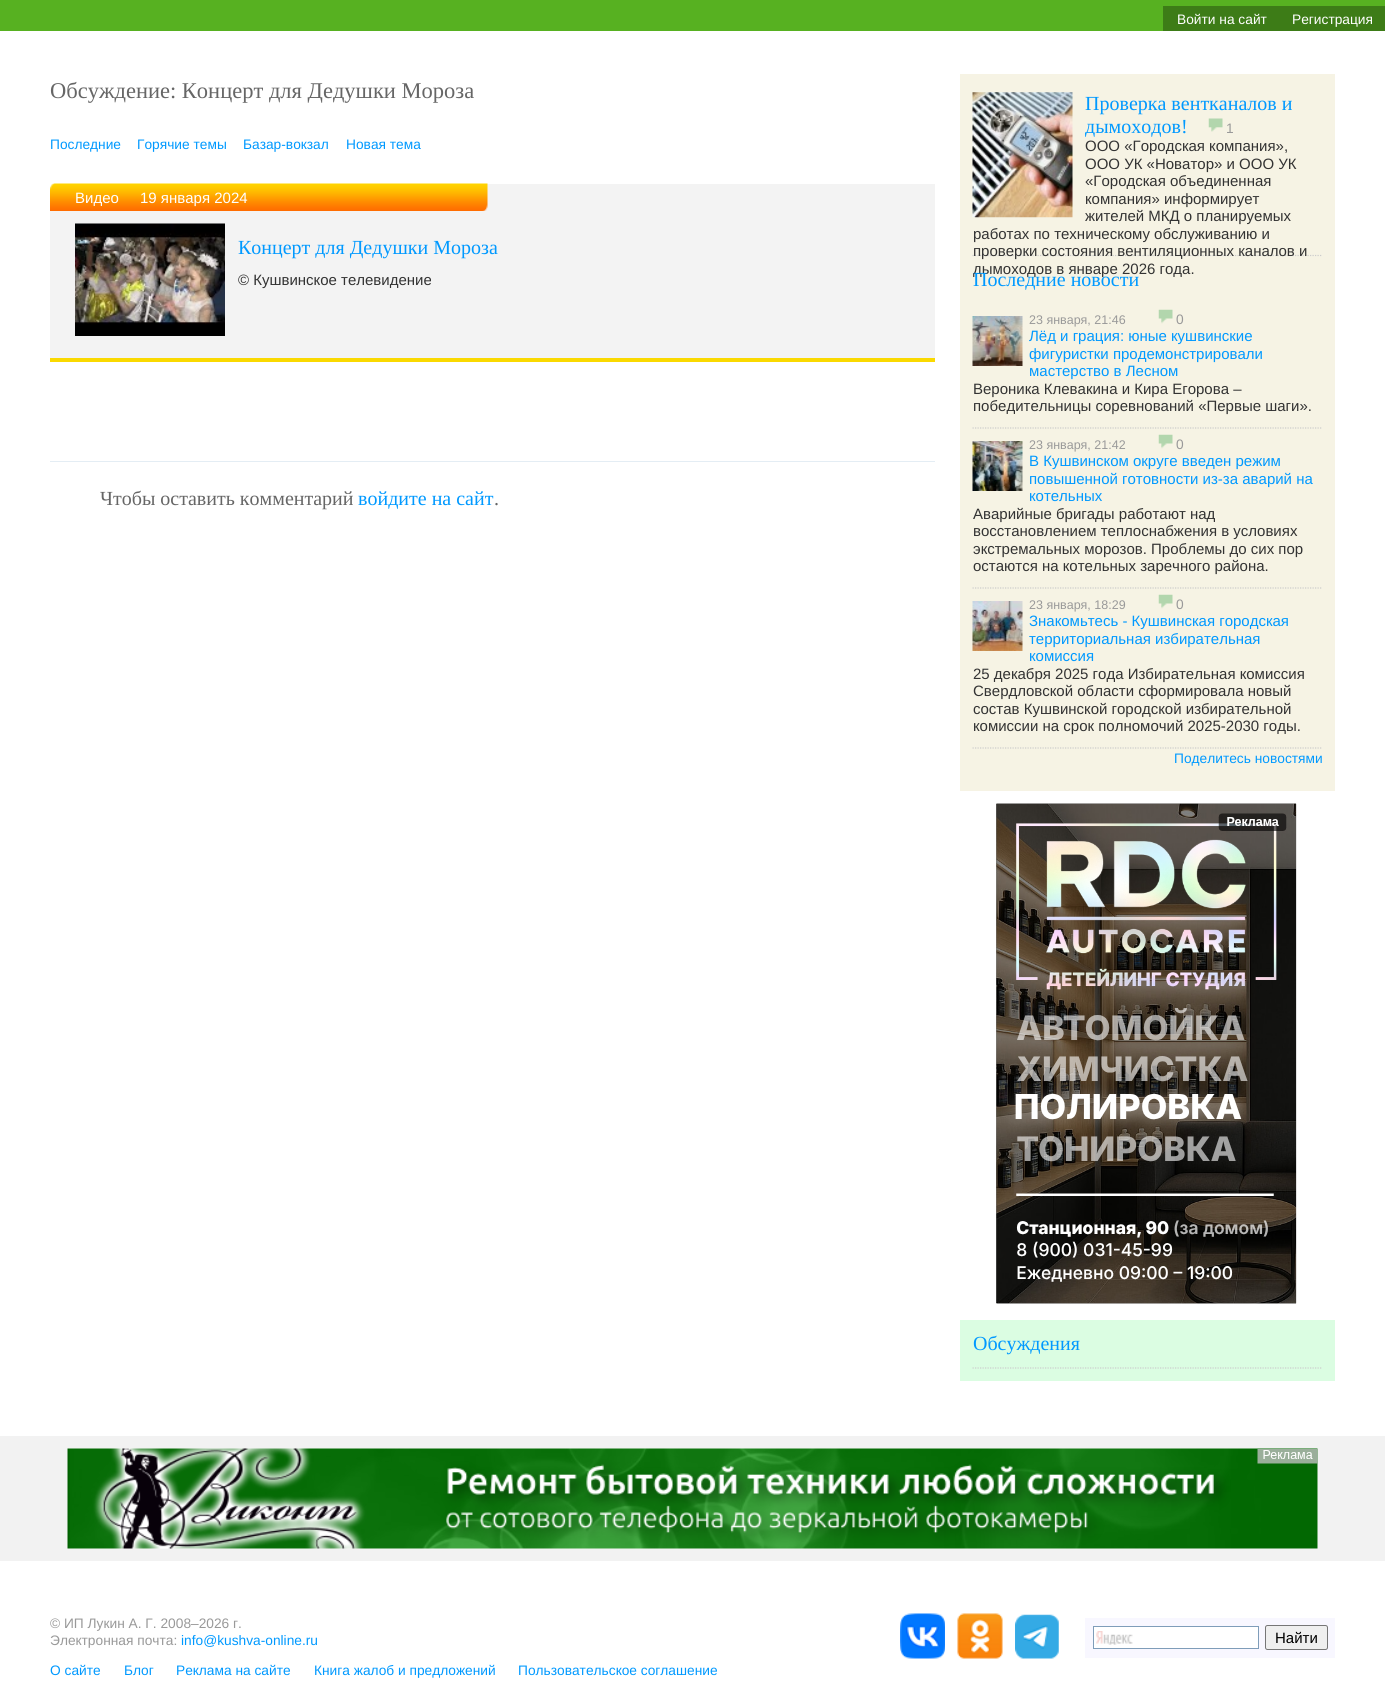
#include <cairo/cairo.h>
#include <math.h>
#include <stddef.h>

typedef struct { double x, y; const char *s; } line_t;
typedef struct { double x, y, w, h; unsigned color; } box_t;
static cairo_t *cr;

static void rgb(unsigned color)
{
	cairo_set_source_rgb(cr, (color >> 16) / 255.0, (color >> 8 & 255) / 255.0, (color & 255) / 255.0);
}

static void rrect(double x, double y, double w, double h, double r)
{
	cairo_new_sub_path(cr);
	cairo_arc(cr, x + w - r, y + h - r, r, 0, M_PI / 2);
	cairo_arc(cr, x + r, y + h - r, r, M_PI / 2, M_PI);
	cairo_arc(cr, x + r, y + r, r, M_PI, 1.5 * M_PI);
	cairo_arc(cr, x + w - r, y + r, r, 1.5 * M_PI, 2 * M_PI);
	cairo_close_path(cr);
}

static void image(const char *path, double x, double y, double w, double h)
{
	cairo_surface_t *image = cairo_image_surface_create_from_png(path);
	cairo_save(cr);
	cairo_set_source_surface(cr, image, x, y);
	cairo_rectangle(cr, x, y, w, h);
	cairo_fill(cr);
	cairo_restore(cr);
	cairo_surface_destroy(image);
}

int main(void) {
	cairo_surface_t *surface = cairo_image_surface_create(CAIRO_FORMAT_RGB24, 1385, 1708);
	cr = cairo_create(surface);
	cairo_font_options_t *options = cairo_font_options_create();
	cairo_font_options_set_hint_metrics(options, CAIRO_HINT_METRICS_OFF);
	cairo_font_options_set_hint_style(options, CAIRO_HINT_STYLE_NONE);
	cairo_set_font_options(cr, options);
	cairo_set_miter_limit(cr, 4);
	rgb(0xffffff);
	cairo_paint(cr);
	{
		static const box_t items[] = {
			{0, 0, 1385, 31, 0x57b121},
			{1163, 6, 222, 25, 0x3d7c17},
			{487, 184, 448, 27, 0xf3f3f3},
		};
		for (size_t i = 0; i < sizeof items / sizeof *items; i++) {
			rgb(items[i].color);
			cairo_rectangle(cr, items[i].x, items[i].y, items[i].w, items[i].h);
			cairo_fill(cr);
		}
	}
	image("img/1.png", 50, 183, 438, 28);
	cairo_rectangle(cr, 50, 211, 885, 147);
	cairo_fill(cr);
	rgb(0xfad900);
	cairo_rectangle(cr, 50, 358, 885, 4);
	cairo_fill(cr);
	image("img/2.png", 75, 223, 150, 113);
	rgb(0xe4edf4);
	cairo_rectangle(cr, 50, 461, 885, 1);
	cairo_fill(cr);
	rgb(0xf6f3e4);
	cairo_rectangle(cr, 960, 74, 375, 717);
	cairo_fill(cr);
	cairo_new_path(cr);
	cairo_move_to(cr, 972.5, 255.5);
	cairo_line_to(cr, 1322.5, 255.5);
	rgb(0xcccccc);
	cairo_set_line_width(cr, 1.2);
	cairo_set_dash(cr, (double[]){1.25, 1.25}, 2, 0);
	cairo_stroke(cr);
	image("img/3.png", 972, 92, 101, 126);
	image("img/4.png", 1208, 118, 15, 14);
	cairo_new_path(cr);
	cairo_move_to(cr, 972.5, 428);
	cairo_line_to(cr, 1322.5, 428);
	cairo_stroke(cr);
	image("img/5.png", 972, 316, 51, 50);
	image("img/6.png", 1158, 309, 15, 15);
	cairo_new_path(cr);
	cairo_move_to(cr, 972.5, 588);
	cairo_line_to(cr, 1322.5, 588);
	cairo_stroke(cr);
	image("img/7.png", 972, 441, 51, 50);
	image("img/6.png", 1158, 434, 15, 15);
	cairo_new_path(cr);
	cairo_move_to(cr, 972.5, 748);
	cairo_line_to(cr, 1322.5, 748);
	cairo_stroke(cr);
	image("img/8.png", 972, 601, 51, 50);
	image("img/6.png", 1158, 594, 15, 15);
	image("img/9.png", 996, 803, 301, 501);
	rgb(0xdbfde2);
	cairo_rectangle(cr, 960, 1320, 375, 61);
	cairo_fill(cr);
	cairo_new_path(cr);
	cairo_move_to(cr, 972.5, 1368);
	cairo_line_to(cr, 1322.5, 1368);
	rgb(0xcccccc);
	cairo_stroke(cr);
	rgb(0xf2f2f2);
	cairo_rectangle(cr, 0, 1436, 1385, 125);
	cairo_fill(cr);
	image("img/10.png", 67, 1448, 1251, 101);
	image("img/11.png", 900, 1613, 45, 46);
	image("img/12.png", 957, 1613, 46, 46);
	image("img/13.png", 1015, 1614, 44, 45);
	rgb(0xf8f7ff);
	cairo_rectangle(cr, 1085, 1618, 250, 40);
	cairo_fill(cr);
	rgb(0xffffff);
	cairo_rectangle(cr, 1094, 1627, 164, 21);
	cairo_fill(cr);
	image("img/14.png", 1096, 1631, 37, 14);
	cairo_rectangle(cr, 1093.5, 1626.5, 165, 22);
	rgb(0x7f9db9);
	cairo_set_line_width(cr, 1);
	cairo_set_dash(cr, NULL, 0, 0);
	cairo_stroke(cr);
	rgb(0xefefef);
	rrect(1265.5, 1625.5, 62, 24, 2);
	cairo_fill_preserve(cr);
	rgb(0x767676);
	cairo_stroke(cr);
	cairo_select_font_face(cr, "Liberation Sans", CAIRO_FONT_SLANT_NORMAL, CAIRO_FONT_WEIGHT_NORMAL);
	cairo_set_font_size(cr, 13.75);
	rgb(0xffffff);
	cairo_move_to(cr, 1177, 24);
	cairo_show_text(cr, "Войти на сайт");
	cairo_move_to(cr, 1292, 24);
	cairo_show_text(cr, "Регистрация");
	cairo_select_font_face(cr, "Liberation Serif", CAIRO_FONT_SLANT_NORMAL, CAIRO_FONT_WEIGHT_NORMAL);
	cairo_set_font_size(cr, 22.5);
	rgb(0x666666);
	cairo_move_to(cr, 50, 98);
	cairo_show_text(cr, "Обсуждение: Концерт для Дедушки Мороза");
	cairo_select_font_face(cr, "Liberation Sans", CAIRO_FONT_SLANT_NORMAL, CAIRO_FONT_WEIGHT_NORMAL);
	cairo_set_font_size(cr, 13.75);
	rgb(0x0099ff);
	{
		static const line_t items[] = {
			{50, 149, "Последние"},
			{137, 149, "Горячие темы"},
			{243, 149, "Базар-вокзал"},
			{346, 149, "Новая тема"},
		};
		for (size_t i = 0; i < sizeof items / sizeof *items; i++) {
			cairo_move_to(cr, items[i].x, items[i].y);
			cairo_show_text(cr, items[i].s);
		}
	}
	cairo_set_font_size(cr, 15);
	rgb(0xffffff);
	cairo_move_to(cr, 75, 203);
	cairo_show_text(cr, "Видео");
	cairo_move_to(cr, 140, 203);
	cairo_show_text(cr, "19 января 2024");
	cairo_select_font_face(cr, "Liberation Serif", CAIRO_FONT_SLANT_NORMAL, CAIRO_FONT_WEIGHT_NORMAL);
	cairo_set_font_size(cr, 20);
	rgb(0x0099ff);
	cairo_move_to(cr, 238, 254);
	cairo_show_text(cr, "Концерт для Дедушки Мороза");
	cairo_select_font_face(cr, "Liberation Sans", CAIRO_FONT_SLANT_NORMAL, CAIRO_FONT_WEIGHT_NORMAL);
	cairo_set_font_size(cr, 15);
	rgb(0x333333);
	cairo_move_to(cr, 238, 285);
	cairo_show_text(cr, "© Кушвинское телевидение");
	cairo_select_font_face(cr, "Liberation Serif", CAIRO_FONT_SLANT_NORMAL, CAIRO_FONT_WEIGHT_NORMAL);
	cairo_set_font_size(cr, 20);
	rgb(0x666666);
	cairo_move_to(cr, 100, 505);
	cairo_show_text(cr, "Чтобы оставить комментарий");
	rgb(0x0099ff);
	cairo_move_to(cr, 358, 505);
	cairo_show_text(cr, "войдите на сайт");
	rgb(0x666666);
	cairo_move_to(cr, 494, 505);
	cairo_show_text(cr, ".");
	rgb(0x0099ff);
	cairo_move_to(cr, 1085, 110);
	cairo_show_text(cr, "Проверка вентканалов и");
	cairo_move_to(cr, 1085, 133);
	cairo_show_text(cr, "дымоходов!");
	cairo_select_font_face(cr, "Liberation Sans", CAIRO_FONT_SLANT_NORMAL, CAIRO_FONT_WEIGHT_NORMAL);
	cairo_set_font_size(cr, 13.75);
	rgb(0x999999);
	cairo_move_to(cr, 1226, 133);
	cairo_show_text(cr, "1");
	cairo_set_font_size(cr, 15);
	rgb(0x333333);
	{
		static const line_t items[] = {
			{1085, 151, "ООО «Городская компания»,"},
			{1085, 169, "ООО УК «Новатор» и ООО УК"},
			{1085, 186, "«Городская объединенная"},
			{1085, 204, "компания» информирует"},
			{1085, 221, "жителей МКД о планируемых"},
			{973, 239, "работах по техническому обслуживанию и"},
			{973, 256, "проверки состояния вентиляционных каналов и"},
			{973, 274, "дымоходов в январе 2026 года."},
		};
		for (size_t i = 0; i < sizeof items / sizeof *items; i++) {
			cairo_move_to(cr, items[i].x, items[i].y);
			cairo_show_text(cr, items[i].s);
		}
	}
	cairo_select_font_face(cr, "Liberation Serif", CAIRO_FONT_SLANT_NORMAL, CAIRO_FONT_WEIGHT_NORMAL);
	cairo_set_font_size(cr, 20);
	rgb(0x0099ff);
	cairo_move_to(cr, 973, 286);
	cairo_show_text(cr, "Последние новости");
	cairo_select_font_face(cr, "Liberation Sans", CAIRO_FONT_SLANT_NORMAL, CAIRO_FONT_WEIGHT_NORMAL);
	cairo_set_font_size(cr, 12.5);
	rgb(0x999999);
	cairo_move_to(cr, 1029, 324);
	cairo_show_text(cr, "23 января, 21:46");
	cairo_set_font_size(cr, 13.75);
	cairo_move_to(cr, 1176, 324);
	cairo_show_text(cr, "0");
	cairo_set_font_size(cr, 15);
	rgb(0x0099ff);
	{
		static const line_t items[] = {
			{1029, 341, "Лёд и грация: юные кушвинские"},
			{1029, 359, "фигуристки продемонстрировали"},
			{1029, 376, "мастерство в Лесном"},
		};
		for (size_t i = 0; i < sizeof items / sizeof *items; i++) {
			cairo_move_to(cr, items[i].x, items[i].y);
			cairo_show_text(cr, items[i].s);
		}
	}
	rgb(0x333333);
	cairo_move_to(cr, 973, 394);
	cairo_show_text(cr, "Вероника Клевакина и Кира Егорова –");
	cairo_move_to(cr, 973, 411);
	cairo_show_text(cr, "победительницы соревнований «Первые шаги».");
	cairo_set_font_size(cr, 12.5);
	rgb(0x999999);
	cairo_move_to(cr, 1029, 449);
	cairo_show_text(cr, "23 января, 21:42");
	cairo_set_font_size(cr, 13.75);
	cairo_move_to(cr, 1176, 449);
	cairo_show_text(cr, "0");
	cairo_set_font_size(cr, 15);
	rgb(0x0099ff);
	{
		static const line_t items[] = {
			{1029, 466, "В Кушвинском округе введен режим"},
			{1029, 484, "повышенной готовности из-за аварий на"},
			{1029, 501, "котельных"},
		};
		for (size_t i = 0; i < sizeof items / sizeof *items; i++) {
			cairo_move_to(cr, items[i].x, items[i].y);
			cairo_show_text(cr, items[i].s);
		}
	}
	rgb(0x333333);
	{
		static const line_t items[] = {
			{973, 519, "Аварийные бригады работают над"},
			{973, 536, "восстановлением теплоснабжения в условиях"},
			{973, 554, "экстремальных морозов. Проблемы до сих пор"},
			{973, 571, "остаются на котельных заречного района."},
		};
		for (size_t i = 0; i < sizeof items / sizeof *items; i++) {
			cairo_move_to(cr, items[i].x, items[i].y);
			cairo_show_text(cr, items[i].s);
		}
	}
	cairo_set_font_size(cr, 12.5);
	rgb(0x999999);
	cairo_move_to(cr, 1029, 609);
	cairo_show_text(cr, "23 января, 18:29");
	cairo_set_font_size(cr, 13.75);
	cairo_move_to(cr, 1176, 609);
	cairo_show_text(cr, "0");
	cairo_set_font_size(cr, 15);
	rgb(0x0099ff);
	{
		static const line_t items[] = {
			{1029, 626, "Знакомьтесь - Кушвинская городская"},
			{1029, 644, "территориальная избирательная"},
			{1029, 661, "комиссия"},
		};
		for (size_t i = 0; i < sizeof items / sizeof *items; i++) {
			cairo_move_to(cr, items[i].x, items[i].y);
			cairo_show_text(cr, items[i].s);
		}
	}
	rgb(0x333333);
	{
		static const line_t items[] = {
			{973, 679, "25 декабря 2025 года Избирательная комиссия"},
			{973, 696, "Свердловской области сформировала новый"},
			{973, 714, "состав Кушвинской городской избирательной"},
			{973, 731, "комиссии на срок полномочий 2025-2030 годы."},
		};
		for (size_t i = 0; i < sizeof items / sizeof *items; i++) {
			cairo_move_to(cr, items[i].x, items[i].y);
			cairo_show_text(cr, items[i].s);
		}
	}
	cairo_set_font_size(cr, 13.75);
	rgb(0x0099ff);
	cairo_move_to(cr, 1174, 763);
	cairo_show_text(cr, "Поделитесь новостями");
	cairo_select_font_face(cr, "Liberation Serif", CAIRO_FONT_SLANT_NORMAL, CAIRO_FONT_WEIGHT_NORMAL);
	cairo_set_font_size(cr, 20);
	cairo_move_to(cr, 973, 1350);
	cairo_show_text(cr, "Обсуждения");
	cairo_select_font_face(cr, "Liberation Sans", CAIRO_FONT_SLANT_NORMAL, CAIRO_FONT_WEIGHT_NORMAL);
	cairo_set_font_size(cr, 13.75);
	rgb(0x999999);
	cairo_move_to(cr, 50, 1628);
	cairo_show_text(cr, "© ИП Лукин А. Г. 2008–2026 г.");
	cairo_move_to(cr, 50, 1645);
	cairo_show_text(cr, "Электронная почта:");
	rgb(0x0099ff);
	cairo_move_to(cr, 181, 1645);
	cairo_show_text(cr, "info@kushva-online.ru");
	cairo_set_font_size(cr, 15);
	rgb(0x000000);
	cairo_move_to(cr, 1275, 1643);
	cairo_show_text(cr, "Найти");
	cairo_set_font_size(cr, 13.75);
	rgb(0x0099ff);
	{
		static const line_t items[] = {
			{50, 1675, "О сайте"},
			{124, 1675, "Блог"},
			{176, 1675, "Реклама на сайте"},
			{314, 1675, "Книга жалоб и предложений"},
			{518, 1675, "Пользовательское соглашение"},
		};
		for (size_t i = 0; i < sizeof items / sizeof *items; i++) {
			cairo_move_to(cr, items[i].x, items[i].y);
			cairo_show_text(cr, items[i].s);
		}
	}
	cairo_surface_write_to_png(surface, "page.png");
	cairo_font_options_destroy(options);
	cairo_destroy(cr);
	cairo_surface_destroy(surface);
	return 0;
}
